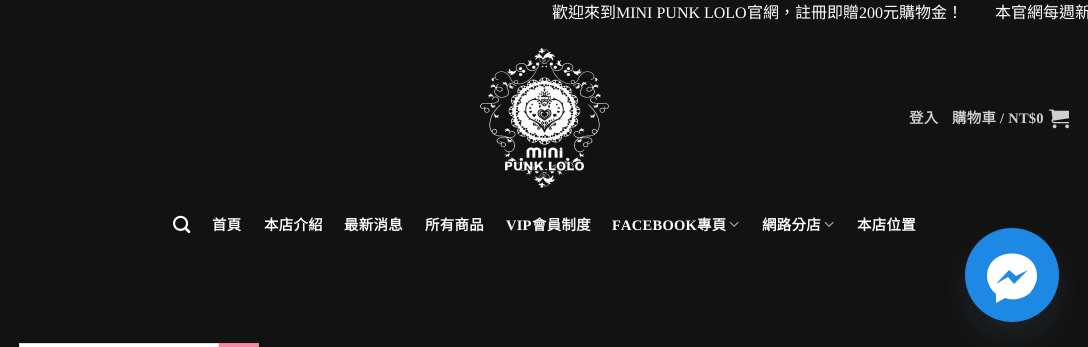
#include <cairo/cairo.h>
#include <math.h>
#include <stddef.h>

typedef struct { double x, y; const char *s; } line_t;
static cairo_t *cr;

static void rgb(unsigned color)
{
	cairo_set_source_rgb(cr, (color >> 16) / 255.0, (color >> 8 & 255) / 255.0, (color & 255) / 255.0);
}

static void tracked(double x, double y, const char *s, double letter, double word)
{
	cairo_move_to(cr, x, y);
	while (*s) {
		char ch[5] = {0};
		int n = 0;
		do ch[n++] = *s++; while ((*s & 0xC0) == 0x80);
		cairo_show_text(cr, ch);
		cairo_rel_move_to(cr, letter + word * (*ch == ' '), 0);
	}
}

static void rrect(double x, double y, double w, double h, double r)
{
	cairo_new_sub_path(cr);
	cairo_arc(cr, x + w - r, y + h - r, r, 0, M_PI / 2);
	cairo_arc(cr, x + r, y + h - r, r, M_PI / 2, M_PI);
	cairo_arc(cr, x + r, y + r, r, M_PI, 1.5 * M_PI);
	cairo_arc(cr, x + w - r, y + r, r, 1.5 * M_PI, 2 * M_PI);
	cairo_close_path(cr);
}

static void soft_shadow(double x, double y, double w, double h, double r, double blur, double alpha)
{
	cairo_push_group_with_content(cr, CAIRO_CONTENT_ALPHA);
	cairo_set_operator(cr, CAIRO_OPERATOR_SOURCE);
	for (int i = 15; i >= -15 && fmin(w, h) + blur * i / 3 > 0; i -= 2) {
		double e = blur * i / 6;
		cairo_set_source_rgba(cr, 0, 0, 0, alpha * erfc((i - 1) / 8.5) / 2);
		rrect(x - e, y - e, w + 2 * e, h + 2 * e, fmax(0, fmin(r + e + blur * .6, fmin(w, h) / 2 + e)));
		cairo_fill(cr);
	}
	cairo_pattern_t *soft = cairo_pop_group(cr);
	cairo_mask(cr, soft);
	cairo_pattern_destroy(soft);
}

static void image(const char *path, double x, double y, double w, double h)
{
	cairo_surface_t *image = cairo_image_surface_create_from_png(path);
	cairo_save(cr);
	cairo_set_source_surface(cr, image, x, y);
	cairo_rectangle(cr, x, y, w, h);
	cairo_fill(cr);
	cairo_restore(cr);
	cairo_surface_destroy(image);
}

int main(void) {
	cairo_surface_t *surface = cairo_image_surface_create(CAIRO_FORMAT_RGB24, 1088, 347);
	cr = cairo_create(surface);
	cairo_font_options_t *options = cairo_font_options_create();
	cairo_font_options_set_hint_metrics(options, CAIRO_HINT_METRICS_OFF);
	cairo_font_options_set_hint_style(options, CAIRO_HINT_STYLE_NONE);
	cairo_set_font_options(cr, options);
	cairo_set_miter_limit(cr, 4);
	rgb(0x121212);
	cairo_paint(cr);
	image("img/1.png", 480, 48, 129, 140);
	image("img/2.png", 1049, 109, 20, 20);
	image("img/3.png", 173, 215, 18, 18);
	image("img/4.png", 729, 221, 10, 6);
	image("img/4.png", 824, 221, 10, 6);
	rgb(0xffffff);
	cairo_rectangle(cr, 19.5, 343.5, 199, 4);
	cairo_fill_preserve(cr);
	rgb(0xdddddd);
	cairo_set_line_width(cr, 1);
	cairo_stroke(cr);
	rgb(0xff87a1);
	cairo_rectangle(cr, 219.5, 343.5, 39, 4);
	cairo_fill_preserve(cr);
	rgb(0xf28099);
	cairo_stroke(cr);
	rgb(0x49687e);
	soft_shadow(965, 244, 94, 94, 47, 12, 0.16);
	rgb(0x1e88e5);
	cairo_arc(cr, 1012, 275, 47, 0, 2 * M_PI);
	cairo_fill(cr);
	rgb(0xffffff);
	cairo_set_fill_rule(cr, CAIRO_FILL_RULE_EVEN_ODD);
	cairo_new_path(cr);
	cairo_move_to(cr, 987, 276);
	cairo_curve_to(cr, 987, 246, 1037, 246, 1037, 276);
	cairo_curve_to(cr, 1037, 282, 1034, 288, 1030, 293);
	cairo_curve_to(cr, 1023, 299, 1013, 301, 1005, 298);
	cairo_line_to(cr, 996, 303);
	cairo_line_to(cr, 996, 294);
	cairo_curve_to(cr, 991, 290, 987, 283, 987, 276);
	cairo_close_path(cr);
	cairo_move_to(cr, 1008, 277);
	cairo_line_to(cr, 1014, 284);
	cairo_line_to(cr, 1028, 270);
	cairo_line_to(cr, 1016, 276);
	cairo_line_to(cr, 1009, 270);
	cairo_line_to(cr, 996, 284);
	cairo_close_path(cr);
	cairo_fill(cr);
	cairo_select_font_face(cr, "Noto Sans CJK TC", CAIRO_FONT_SLANT_NORMAL, CAIRO_FONT_WEIGHT_NORMAL);
	cairo_set_font_size(cr, 16);
	cairo_move_to(cr, 552, 18);
	cairo_show_text(cr, "歡迎來到");
	cairo_select_font_face(cr, "Liberation Serif", CAIRO_FONT_SLANT_NORMAL, CAIRO_FONT_WEIGHT_NORMAL);
	cairo_move_to(cr, 616, 18);
	cairo_show_text(cr, "MINI PUNK LOLO");
	cairo_select_font_face(cr, "Noto Sans CJK TC", CAIRO_FONT_SLANT_NORMAL, CAIRO_FONT_WEIGHT_NORMAL);
	cairo_move_to(cr, 747, 18);
	cairo_show_text(cr, "官網，註冊即贈");
	cairo_select_font_face(cr, "Liberation Serif", CAIRO_FONT_SLANT_NORMAL, CAIRO_FONT_WEIGHT_NORMAL);
	cairo_move_to(cr, 859, 18);
	cairo_show_text(cr, "200");
	cairo_select_font_face(cr, "Noto Sans CJK TC", CAIRO_FONT_SLANT_NORMAL, CAIRO_FONT_WEIGHT_NORMAL);
	cairo_move_to(cr, 883, 18);
	cairo_show_text(cr, "元購物金！");
	cairo_move_to(cr, 995, 18);
	cairo_show_text(cr, "本官網每週新");
	cairo_select_font_face(cr, "Noto Sans CJK TC", CAIRO_FONT_SLANT_NORMAL, CAIRO_FONT_WEIGHT_BOLD);
	cairo_set_font_size(cr, 14.5);
	rgb(0xd0d0d0);
	tracked(909, 123, "登入", 0.25, 0);
	tracked(952, 123, "購物車", 0.25, 0);
	cairo_select_font_face(cr, "Liberation Serif", CAIRO_FONT_SLANT_NORMAL, CAIRO_FONT_WEIGHT_BOLD);
	tracked(1000, 123, "/ NT$0", 0.25, 0);
	cairo_select_font_face(cr, "Noto Sans CJK TC", CAIRO_FONT_SLANT_NORMAL, CAIRO_FONT_WEIGHT_BOLD);
	rgb(0xffffff);
	{
		static const line_t items[] = {
			{212, 230, "首頁"},
			{264, 230, "本店介紹"},
			{344, 230, "最新消息"},
			{425, 230, "所有商品"},
		};
		for (size_t i = 0; i < sizeof items / sizeof *items; i++) {
			tracked(items[i].x, items[i].y, items[i].s, 0.25, 0);
		}
	}
	cairo_select_font_face(cr, "Liberation Serif", CAIRO_FONT_SLANT_NORMAL, CAIRO_FONT_WEIGHT_BOLD);
	tracked(506, 230, "VIP", 0.25, 0);
	cairo_select_font_face(cr, "Noto Sans CJK TC", CAIRO_FONT_SLANT_NORMAL, CAIRO_FONT_WEIGHT_BOLD);
	tracked(532, 230, "會員制度", 0.25, 0);
	cairo_select_font_face(cr, "Liberation Serif", CAIRO_FONT_SLANT_NORMAL, CAIRO_FONT_WEIGHT_BOLD);
	tracked(612, 230, "FACEBOOK", 0.25, 0);
	cairo_select_font_face(cr, "Noto Sans CJK TC", CAIRO_FONT_SLANT_NORMAL, CAIRO_FONT_WEIGHT_BOLD);
	{
		static const line_t items[] = {
			{697, 230, "專頁"},
			{762, 230, "網路分店"},
			{857, 230, "本店位置"},
		};
		for (size_t i = 0; i < sizeof items / sizeof *items; i++) {
			tracked(items[i].x, items[i].y, items[i].s, 0.25, 0);
		}
	}
	cairo_surface_write_to_png(surface, "page.png");
	cairo_font_options_destroy(options);
	cairo_destroy(cr);
	cairo_surface_destroy(surface);
	return 0;
}
